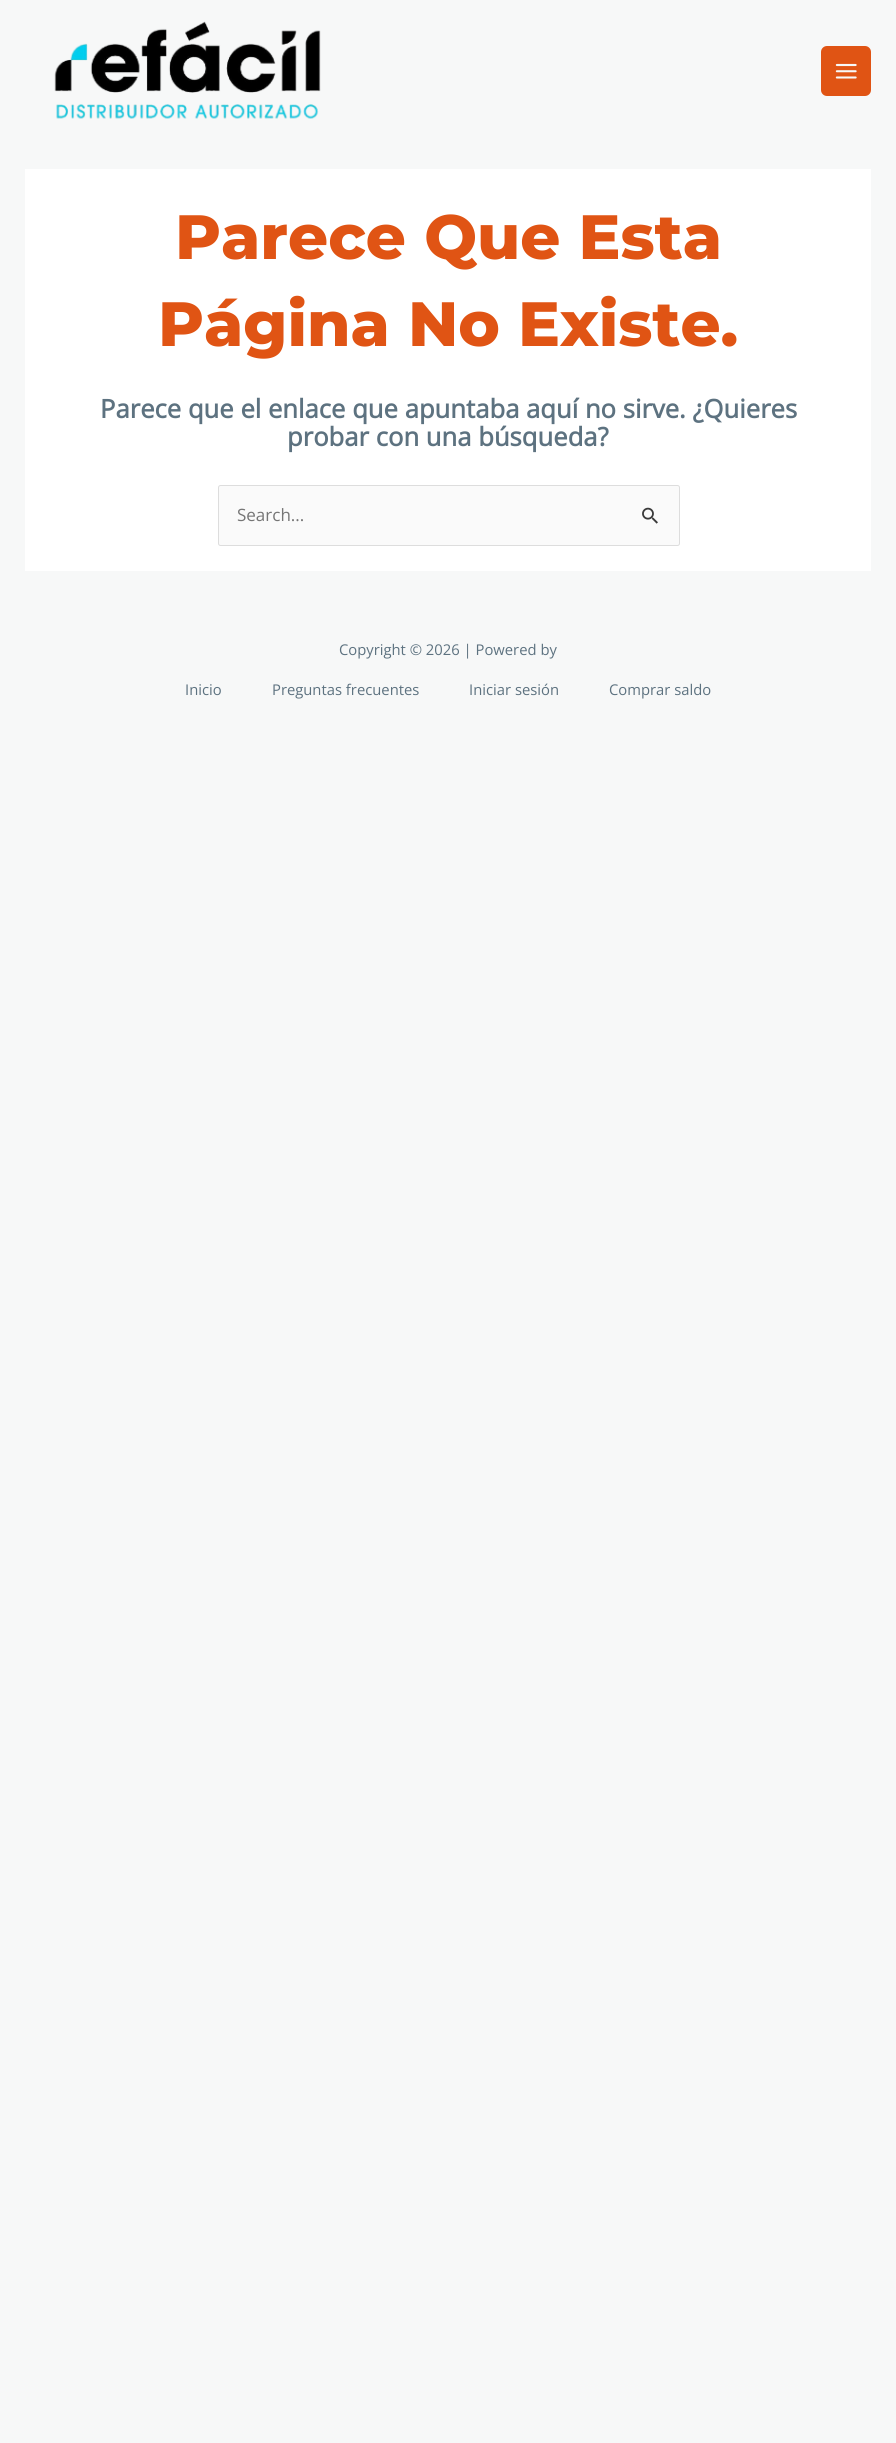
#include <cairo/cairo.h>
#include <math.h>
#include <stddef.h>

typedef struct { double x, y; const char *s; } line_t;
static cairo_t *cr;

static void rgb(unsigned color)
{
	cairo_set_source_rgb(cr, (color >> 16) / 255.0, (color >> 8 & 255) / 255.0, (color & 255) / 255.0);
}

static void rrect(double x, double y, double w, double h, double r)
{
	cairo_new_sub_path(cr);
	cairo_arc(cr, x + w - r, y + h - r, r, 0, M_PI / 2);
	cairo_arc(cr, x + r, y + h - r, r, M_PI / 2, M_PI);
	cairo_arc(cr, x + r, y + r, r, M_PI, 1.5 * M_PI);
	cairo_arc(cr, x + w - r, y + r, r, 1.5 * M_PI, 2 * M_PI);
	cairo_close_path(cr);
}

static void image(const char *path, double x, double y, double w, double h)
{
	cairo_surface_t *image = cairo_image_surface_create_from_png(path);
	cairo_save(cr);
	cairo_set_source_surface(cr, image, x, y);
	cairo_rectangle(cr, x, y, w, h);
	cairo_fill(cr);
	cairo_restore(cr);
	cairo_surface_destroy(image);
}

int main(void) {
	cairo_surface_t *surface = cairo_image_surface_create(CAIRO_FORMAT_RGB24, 896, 2443);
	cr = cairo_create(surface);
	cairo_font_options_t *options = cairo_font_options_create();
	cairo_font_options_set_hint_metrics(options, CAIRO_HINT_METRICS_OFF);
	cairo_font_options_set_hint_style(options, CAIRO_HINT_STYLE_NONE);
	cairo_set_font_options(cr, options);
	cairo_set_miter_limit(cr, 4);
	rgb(0xf7f8f8);
	cairo_paint(cr);
	image("img/1.png", 54, 21, 267, 98);
	rgb(0xe05414);
	rrect(821, 46, 50, 50, 6);
	cairo_fill(cr);
	image("img/2.png", 835, 63, 22, 16);
	rgb(0xffffff);
	cairo_rectangle(cr, 25, 169, 846, 402);
	cairo_fill(cr);
	rgb(0xfafafa);
	rrect(218.5, 485.5, 461, 60, 2);
	cairo_fill_preserve(cr);
	rgb(0xdddddd);
	cairo_set_line_width(cr, 1);
	cairo_stroke(cr);
	image("img/3.png", 642, 507, 16, 17);
	cairo_select_font_face(cr, "Montserrat Thin", CAIRO_FONT_SLANT_NORMAL, CAIRO_FONT_WEIGHT_NORMAL);
	cairo_set_font_size(cr, 62.5);
	rgb(0xe05414);
	cairo_move_to(cr, 175, 259);
	cairo_show_text(cr, "Parece Que Esta");
	cairo_move_to(cr, 158, 346);
	cairo_show_text(cr, "Página No Existe.");
	cairo_select_font_face(cr, "Open Sans", CAIRO_FONT_SLANT_NORMAL, CAIRO_FONT_WEIGHT_BOLD);
	cairo_set_font_size(cr, 25.65);
	rgb(0x5d7280);
	cairo_move_to(cr, 100, 418);
	cairo_show_text(cr, "Parece que el enlace que apuntaba aquí no sirve. ¿Quieres");
	cairo_move_to(cr, 287, 446);
	cairo_show_text(cr, "probar con una búsqueda?");
	cairo_select_font_face(cr, "Open Sans", CAIRO_FONT_SLANT_NORMAL, CAIRO_FONT_WEIGHT_NORMAL);
	cairo_set_font_size(cr, 17);
	rgb(0x757575);
	cairo_move_to(cr, 237, 521);
	cairo_show_text(cr, "Search...");
	cairo_set_font_size(cr, 14.8);
	rgb(0x5d7280);
	{
		static const line_t items[] = {
			{339, 655, "Copyright © 2026 | Powered by"},
			{185, 695, "Inicio"},
			{272, 695, "Preguntas frecuentes"},
			{469, 695, "Iniciar sesión"},
			{609, 695, "Comprar saldo"},
		};
		for (size_t i = 0; i < sizeof items / sizeof *items; i++) {
			cairo_move_to(cr, items[i].x, items[i].y);
			cairo_show_text(cr, items[i].s);
		}
	}
	cairo_surface_write_to_png(surface, "page.png");
	cairo_font_options_destroy(options);
	cairo_destroy(cr);
	cairo_surface_destroy(surface);
	return 0;
}
